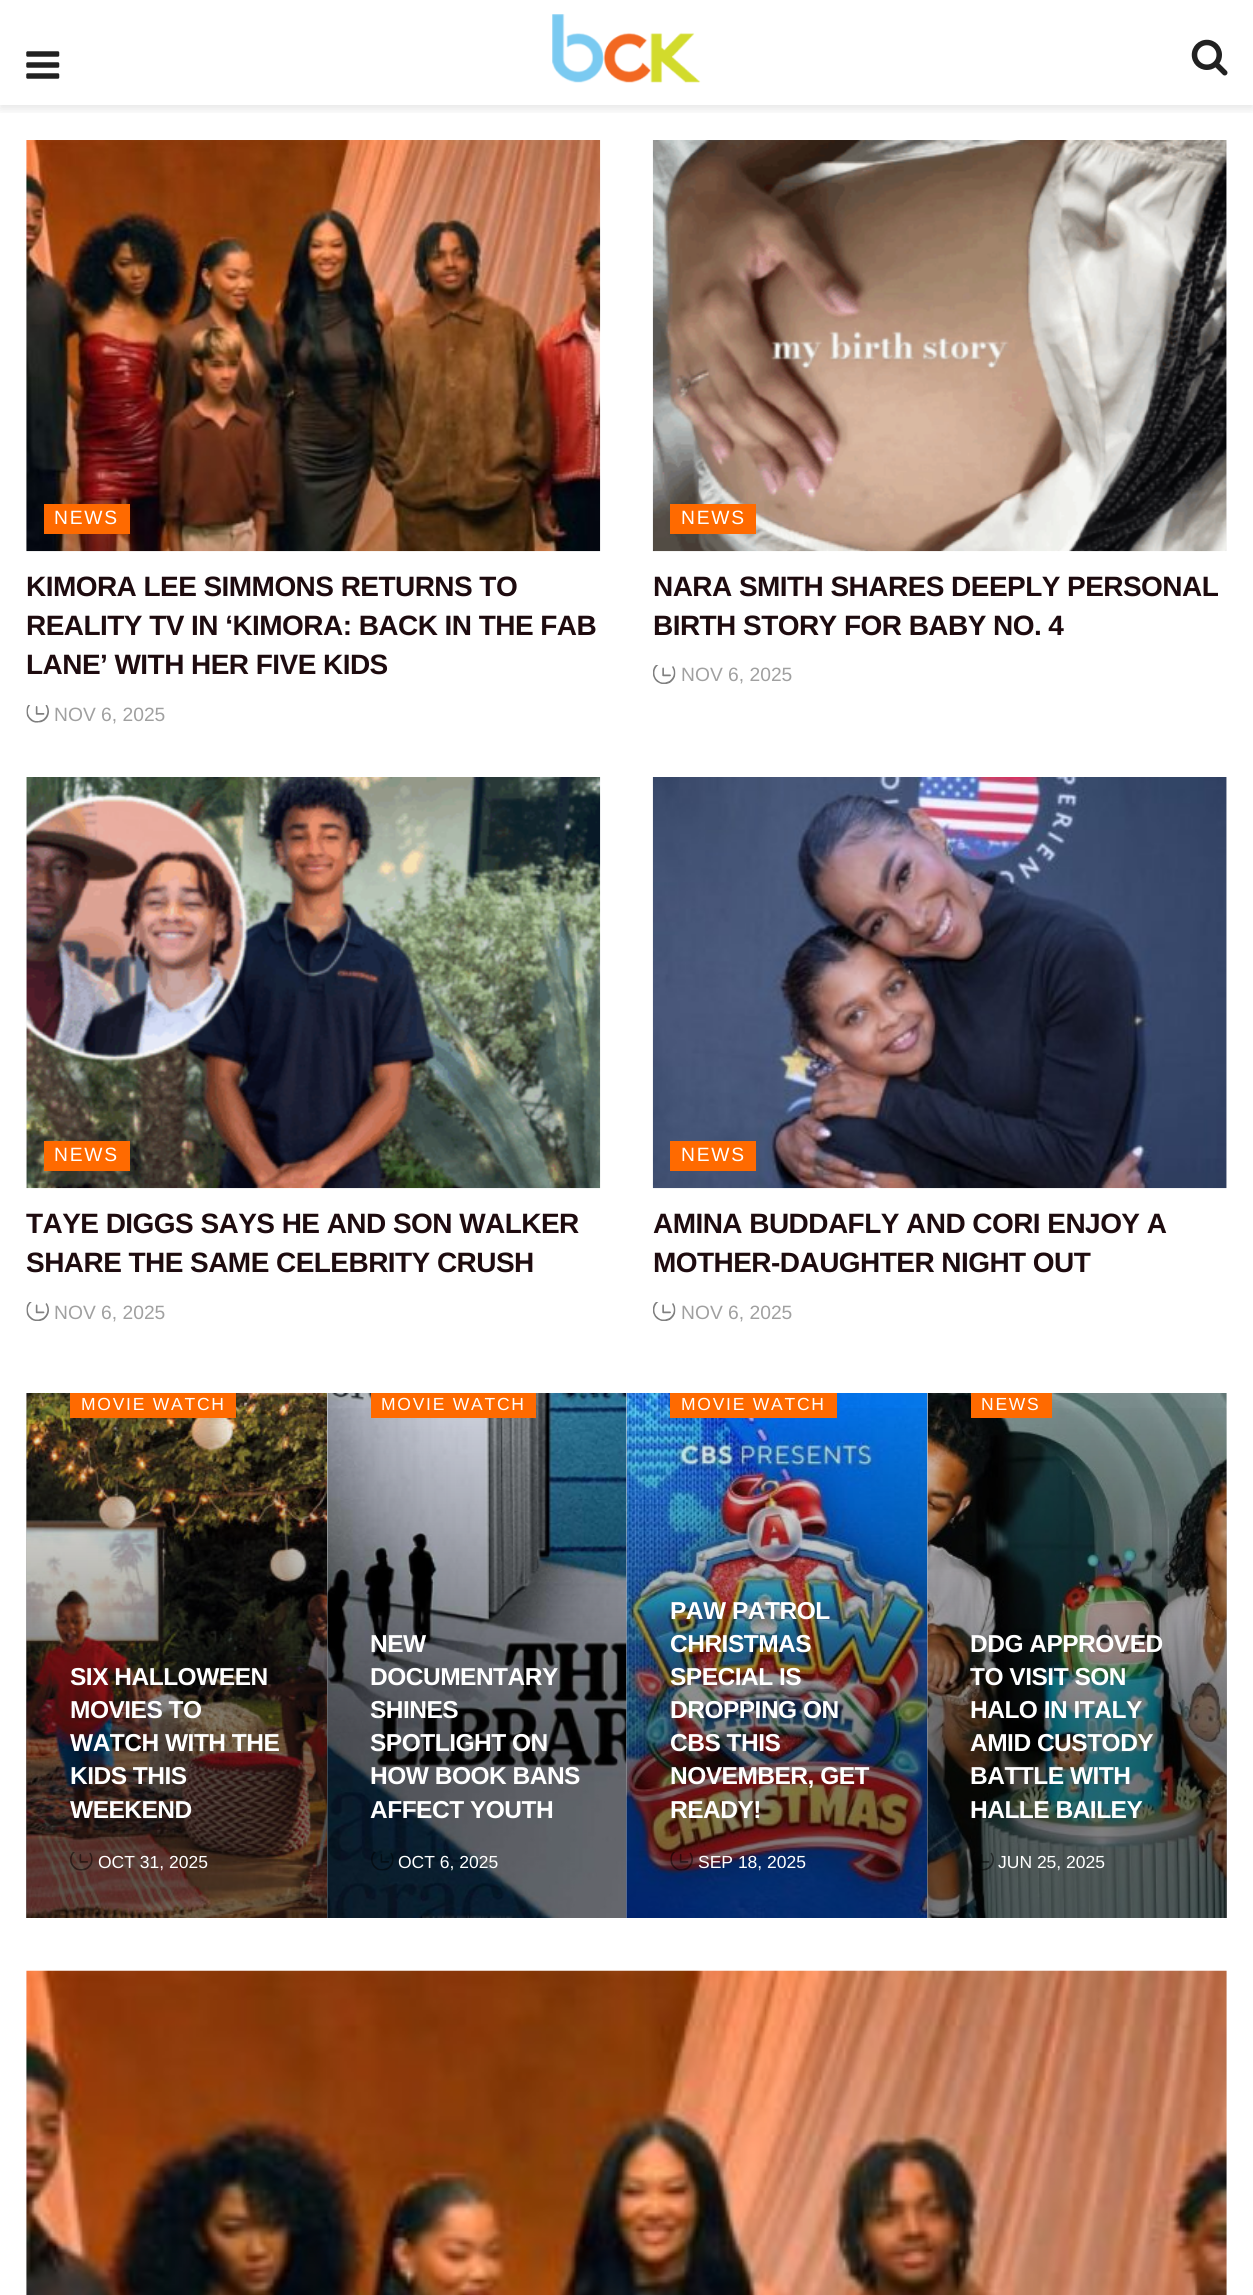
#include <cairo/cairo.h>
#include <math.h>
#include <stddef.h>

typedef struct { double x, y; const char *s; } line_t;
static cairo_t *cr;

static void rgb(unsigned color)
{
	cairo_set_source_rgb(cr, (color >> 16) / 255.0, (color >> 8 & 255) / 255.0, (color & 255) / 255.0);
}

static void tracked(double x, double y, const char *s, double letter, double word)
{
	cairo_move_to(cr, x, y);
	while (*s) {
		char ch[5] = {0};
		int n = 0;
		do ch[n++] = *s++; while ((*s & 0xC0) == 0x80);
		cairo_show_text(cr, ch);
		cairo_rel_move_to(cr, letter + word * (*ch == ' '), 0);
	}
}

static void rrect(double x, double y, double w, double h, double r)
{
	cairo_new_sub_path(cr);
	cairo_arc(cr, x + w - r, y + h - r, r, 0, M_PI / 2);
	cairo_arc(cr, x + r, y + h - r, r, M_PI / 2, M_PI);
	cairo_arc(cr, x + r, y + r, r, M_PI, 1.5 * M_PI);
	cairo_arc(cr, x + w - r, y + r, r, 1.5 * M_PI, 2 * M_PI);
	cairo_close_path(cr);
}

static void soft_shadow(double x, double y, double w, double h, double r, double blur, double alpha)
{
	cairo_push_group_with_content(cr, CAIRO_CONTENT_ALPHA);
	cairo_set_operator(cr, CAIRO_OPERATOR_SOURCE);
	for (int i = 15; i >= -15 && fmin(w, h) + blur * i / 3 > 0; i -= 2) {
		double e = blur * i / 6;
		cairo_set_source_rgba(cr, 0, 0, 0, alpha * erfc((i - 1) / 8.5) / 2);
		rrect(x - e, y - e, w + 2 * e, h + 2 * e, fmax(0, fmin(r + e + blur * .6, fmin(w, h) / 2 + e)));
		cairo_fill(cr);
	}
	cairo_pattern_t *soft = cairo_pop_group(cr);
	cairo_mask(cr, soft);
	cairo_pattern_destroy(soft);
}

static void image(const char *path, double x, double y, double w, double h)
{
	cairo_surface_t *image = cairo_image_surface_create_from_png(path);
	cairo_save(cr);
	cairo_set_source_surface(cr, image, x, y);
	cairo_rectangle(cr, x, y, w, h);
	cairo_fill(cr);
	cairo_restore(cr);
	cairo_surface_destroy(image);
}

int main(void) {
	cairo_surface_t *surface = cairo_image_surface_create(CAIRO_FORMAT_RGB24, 1253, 2295);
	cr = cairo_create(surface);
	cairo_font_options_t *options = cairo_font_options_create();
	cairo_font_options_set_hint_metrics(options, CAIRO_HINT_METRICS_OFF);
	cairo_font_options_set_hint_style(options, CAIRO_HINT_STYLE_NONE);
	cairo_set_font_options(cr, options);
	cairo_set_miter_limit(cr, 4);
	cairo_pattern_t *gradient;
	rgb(0xffffff);
	cairo_paint(cr);
	cairo_save(cr);
	cairo_rectangle(cr, 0, 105, 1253, 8);
	cairo_clip(cr);
	rgb(0x000000);
	soft_shadow(0, 4, 1253, 105, 0, 5, 0.1);
	cairo_restore(cr);
	image("img/1.png", 26, 51, 34, 28);
	image("img/2.png", 552, 14, 149, 69);
	image("img/3.png", 1191, 39, 37, 37);
	rgb(0xf7f7f7);
	cairo_rectangle(cr, 26, 140, 1, 411);
	cairo_fill(cr);
	image("img/4.png", 26, 140, 575, 412);
	rgb(0xff6a00);
	cairo_rectangle(cr, 44, 504, 86, 30);
	cairo_fill(cr);
	image("img/5.png", 26, 705, 23, 18);
	rgb(0xf7f7f7);
	cairo_rectangle(cr, 1226, 140, 1, 411);
	cairo_fill(cr);
	image("img/6.png", 652, 140, 575, 412);
	rgb(0xff6a00);
	cairo_rectangle(cr, 670, 504, 86, 30);
	cairo_fill(cr);
	image("img/7.png", 653, 665, 23, 19);
	rgb(0xf7f7f7);
	cairo_rectangle(cr, 26, 777, 1, 411);
	cairo_fill(cr);
	image("img/8.png", 26, 777, 575, 412);
	rgb(0xff6a00);
	cairo_rectangle(cr, 44, 1141, 86, 30);
	cairo_fill(cr);
	image("img/9.png", 26, 1302, 23, 19);
	rgb(0xf7f7f7);
	cairo_rectangle(cr, 1226, 777, 1, 411);
	cairo_fill(cr);
	image("img/10.png", 652, 777, 575, 412);
	rgb(0xff6a00);
	cairo_rectangle(cr, 670, 1141, 86, 30);
	cairo_fill(cr);
	image("img/7.png", 653, 1302, 23, 19);
	rgb(0xf7f7f7);
	cairo_rectangle(cr, 26, 1393, 1, 525);
	cairo_fill(cr);
	image("img/11.png", 26, 1393, 301, 525);
	gradient = cairo_pattern_create_linear(177, 1393, 177, 1918);
	cairo_pattern_add_color_stop_rgba(gradient, 0, 0, 0, 0, 0);
	cairo_pattern_add_color_stop_rgba(gradient, 0.65, 0, 0, 0, 0.5);
	cairo_pattern_add_color_stop_rgba(gradient, 1, 0, 0, 0, 0.5);
	cairo_set_source(cr, gradient);
	cairo_pattern_destroy(gradient);
	cairo_rectangle(cr, 26, 1408, 301, 510);
	cairo_fill(cr);
	rgb(0xff6a00);
	cairo_rectangle(cr, 70, 1393, 166, 25);
	cairo_fill(cr);
	image("img/12.png", 70, 1852, 23, 19);
	rgb(0xf7f7f7);
	cairo_rectangle(cr, 327, 1393, 300, 525);
	cairo_fill(cr);
	image("img/13.png", 327, 1393, 300, 525);
	gradient = cairo_pattern_create_linear(477, 1393, 477, 1918);
	cairo_pattern_add_color_stop_rgba(gradient, 0, 0, 0, 0, 0);
	cairo_pattern_add_color_stop_rgba(gradient, 0.65, 0, 0, 0, 0.5);
	cairo_pattern_add_color_stop_rgba(gradient, 1, 0, 0, 0, 0.5);
	cairo_set_source(cr, gradient);
	cairo_pattern_destroy(gradient);
	cairo_rectangle(cr, 327, 1408, 300, 510);
	cairo_fill(cr);
	rgb(0xff6a00);
	cairo_rectangle(cr, 371, 1393, 165, 25);
	cairo_fill(cr);
	image("img/14.png", 371, 1852, 23, 19);
	rgb(0xf7f7f7);
	cairo_rectangle(cr, 927, 1393, 1, 525);
	cairo_fill(cr);
	image("img/15.png", 626, 1393, 302, 525);
	gradient = cairo_pattern_create_linear(777, 1393, 777, 1918);
	cairo_pattern_add_color_stop_rgba(gradient, 0, 0, 0, 0, 0);
	cairo_pattern_add_color_stop_rgba(gradient, 0.65, 0, 0, 0, 0.5);
	cairo_pattern_add_color_stop_rgba(gradient, 1, 0, 0, 0, 0.5);
	cairo_set_source(cr, gradient);
	cairo_pattern_destroy(gradient);
	cairo_rectangle(cr, 627, 1408, 301, 510);
	cairo_fill(cr);
	rgb(0xff6a00);
	cairo_rectangle(cr, 670, 1393, 167, 25);
	cairo_fill(cr);
	image("img/16.png", 670, 1852, 23, 19);
	rgb(0xf7f7f7);
	cairo_rectangle(cr, 1226, 1393, 1, 525);
	cairo_fill(cr);
	image("img/17.png", 927, 1393, 300, 525);
	gradient = cairo_pattern_create_linear(1077, 1393, 1077, 1918);
	cairo_pattern_add_color_stop_rgba(gradient, 0, 0, 0, 0, 0);
	cairo_pattern_add_color_stop_rgba(gradient, 0.65, 0, 0, 0, 0.5);
	cairo_pattern_add_color_stop_rgba(gradient, 1, 0, 0, 0, 0.5);
	cairo_set_source(cr, gradient);
	cairo_pattern_destroy(gradient);
	cairo_rectangle(cr, 928, 1408, 299, 510);
	cairo_fill(cr);
	rgb(0xff6a00);
	cairo_rectangle(cr, 971, 1393, 81, 25);
	cairo_fill(cr);
	image("img/18.png", 971, 1852, 23, 19);
	rgb(0xf7f7f7);
	cairo_rectangle(cr, 26, 1971, 1201, 324);
	cairo_fill(cr);
	image("img/19.png", 26, 1970, 1201, 325);
	cairo_select_font_face(cr, "Liberation Sans", CAIRO_FONT_SLANT_NORMAL, CAIRO_FONT_WEIGHT_NORMAL);
	cairo_set_font_size(cr, 19.25);
	rgb(0xffffff);
	tracked(54, 524, "NEWS", 1.75, 0);
	cairo_select_font_face(cr, "Liberation Sans", CAIRO_FONT_SLANT_NORMAL, CAIRO_FONT_WEIGHT_BOLD);
	cairo_set_font_size(cr, 28);
	rgb(0x1e0b0f);
	{
		static const line_t items[] = {
			{26, 596, "KIMORA LEE SIMMONS RETURNS TO"},
			{26, 635, "REALITY TV IN ‘KIMORA: BACK IN THE FAB"},
			{26, 674, "LANE’ WITH HER FIVE KIDS"},
		};
		for (size_t i = 0; i < sizeof items / sizeof *items; i++) {
			tracked(items[i].x, items[i].y, items[i].s, -0.55, 0);
		}
	}
	cairo_select_font_face(cr, "Liberation Sans", CAIRO_FONT_SLANT_NORMAL, CAIRO_FONT_WEIGHT_NORMAL);
	cairo_set_font_size(cr, 19.25);
	rgb(0xa0a0a0);
	cairo_move_to(cr, 54, 721);
	cairo_show_text(cr, "NOV 6, 2025");
	rgb(0xffffff);
	tracked(681, 524, "NEWS", 1.75, 0);
	cairo_select_font_face(cr, "Liberation Sans", CAIRO_FONT_SLANT_NORMAL, CAIRO_FONT_WEIGHT_BOLD);
	cairo_set_font_size(cr, 28);
	rgb(0x1e0b0f);
	tracked(653, 596, "NARA SMITH SHARES DEEPLY PERSONAL", -0.55, 0);
	tracked(653, 635, "BIRTH STORY FOR BABY NO. 4", -0.55, 0);
	cairo_select_font_face(cr, "Liberation Sans", CAIRO_FONT_SLANT_NORMAL, CAIRO_FONT_WEIGHT_NORMAL);
	cairo_set_font_size(cr, 19.25);
	rgb(0xa0a0a0);
	cairo_move_to(cr, 681, 681);
	cairo_show_text(cr, "NOV 6, 2025");
	rgb(0xffffff);
	tracked(54, 1161, "NEWS", 1.75, 0);
	cairo_select_font_face(cr, "Liberation Sans", CAIRO_FONT_SLANT_NORMAL, CAIRO_FONT_WEIGHT_BOLD);
	cairo_set_font_size(cr, 28);
	rgb(0x1e0b0f);
	tracked(26, 1233, "TAYE DIGGS SAYS HE AND SON WALKER", -0.55, 0);
	tracked(26, 1272, "SHARE THE SAME CELEBRITY CRUSH", -0.55, 0);
	cairo_select_font_face(cr, "Liberation Sans", CAIRO_FONT_SLANT_NORMAL, CAIRO_FONT_WEIGHT_NORMAL);
	cairo_set_font_size(cr, 19.25);
	rgb(0xa0a0a0);
	cairo_move_to(cr, 54, 1319);
	cairo_show_text(cr, "NOV 6, 2025");
	rgb(0xffffff);
	tracked(681, 1161, "NEWS", 1.75, 0);
	cairo_select_font_face(cr, "Liberation Sans", CAIRO_FONT_SLANT_NORMAL, CAIRO_FONT_WEIGHT_BOLD);
	cairo_set_font_size(cr, 28);
	rgb(0x1e0b0f);
	tracked(653, 1233, "AMINA BUDDAFLY AND CORI ENJOY A", -0.55, 0);
	tracked(653, 1272, "MOTHER-DAUGHTER NIGHT OUT", -0.55, 0);
	cairo_select_font_face(cr, "Liberation Sans", CAIRO_FONT_SLANT_NORMAL, CAIRO_FONT_WEIGHT_NORMAL);
	cairo_set_font_size(cr, 19.25);
	rgb(0xa0a0a0);
	cairo_move_to(cr, 681, 1319);
	cairo_show_text(cr, "NOV 6, 2025");
	cairo_set_font_size(cr, 17.5);
	rgb(0xffffff);
	tracked(81, 1410, "MOVIE WATCH", 1.75, 0);
	cairo_select_font_face(cr, "Liberation Sans", CAIRO_FONT_SLANT_NORMAL, CAIRO_FONT_WEIGHT_BOLD);
	cairo_set_font_size(cr, 24.5);
	{
		static const line_t items[] = {
			{70, 1685, "SIX HALLOWEEN"},
			{70, 1718, "MOVIES TO"},
			{70, 1751, "WATCH WITH THE"},
			{70, 1784, "KIDS THIS"},
			{70, 1818, "WEEKEND"},
		};
		for (size_t i = 0; i < sizeof items / sizeof *items; i++) {
			tracked(items[i].x, items[i].y, items[i].s, -0.5, 0);
		}
	}
	cairo_select_font_face(cr, "Liberation Sans", CAIRO_FONT_SLANT_NORMAL, CAIRO_FONT_WEIGHT_NORMAL);
	cairo_set_font_size(cr, 17.5);
	cairo_move_to(cr, 98, 1868);
	cairo_show_text(cr, "OCT 31, 2025");
	tracked(381, 1410, "MOVIE WATCH", 1.75, 0);
	cairo_select_font_face(cr, "Liberation Sans", CAIRO_FONT_SLANT_NORMAL, CAIRO_FONT_WEIGHT_BOLD);
	cairo_set_font_size(cr, 24.5);
	{
		static const line_t items[] = {
			{370, 1652, "NEW"},
			{370, 1685, "DOCUMENTARY"},
			{370, 1718, "SHINES"},
			{370, 1751, "SPOTLIGHT ON"},
			{370, 1784, "HOW BOOK BANS"},
			{370, 1818, "AFFECT YOUTH"},
		};
		for (size_t i = 0; i < sizeof items / sizeof *items; i++) {
			tracked(items[i].x, items[i].y, items[i].s, -0.5, 0);
		}
	}
	cairo_select_font_face(cr, "Liberation Sans", CAIRO_FONT_SLANT_NORMAL, CAIRO_FONT_WEIGHT_NORMAL);
	cairo_set_font_size(cr, 17.5);
	cairo_move_to(cr, 398, 1868);
	cairo_show_text(cr, "OCT 6, 2025");
	tracked(681, 1410, "MOVIE WATCH", 1.75, 0);
	cairo_select_font_face(cr, "Liberation Sans", CAIRO_FONT_SLANT_NORMAL, CAIRO_FONT_WEIGHT_BOLD);
	cairo_set_font_size(cr, 24.5);
	{
		static const line_t items[] = {
			{670, 1619, "PAW PATROL"},
			{670, 1652, "CHRISTMAS"},
			{670, 1685, "SPECIAL IS"},
			{670, 1718, "DROPPING ON"},
			{670, 1751, "CBS THIS"},
			{670, 1784, "NOVEMBER, GET"},
			{670, 1818, "READY!"},
		};
		for (size_t i = 0; i < sizeof items / sizeof *items; i++) {
			tracked(items[i].x, items[i].y, items[i].s, -0.5, 0);
		}
	}
	cairo_select_font_face(cr, "Liberation Sans", CAIRO_FONT_SLANT_NORMAL, CAIRO_FONT_WEIGHT_NORMAL);
	cairo_set_font_size(cr, 17.5);
	cairo_move_to(cr, 698, 1868);
	cairo_show_text(cr, "SEP 18, 2025");
	tracked(981, 1410, "NEWS", 1.75, 0);
	cairo_select_font_face(cr, "Liberation Sans", CAIRO_FONT_SLANT_NORMAL, CAIRO_FONT_WEIGHT_BOLD);
	cairo_set_font_size(cr, 24.5);
	{
		static const line_t items[] = {
			{970, 1652, "DDG APPROVED"},
			{970, 1685, "TO VISIT SON"},
			{970, 1718, "HALO IN ITALY"},
			{970, 1751, "AMID CUSTODY"},
			{970, 1784, "BATTLE WITH"},
			{970, 1818, "HALLE BAILEY"},
		};
		for (size_t i = 0; i < sizeof items / sizeof *items; i++) {
			tracked(items[i].x, items[i].y, items[i].s, -0.5, 0);
		}
	}
	cairo_select_font_face(cr, "Liberation Sans", CAIRO_FONT_SLANT_NORMAL, CAIRO_FONT_WEIGHT_NORMAL);
	cairo_set_font_size(cr, 17.5);
	cairo_move_to(cr, 998, 1868);
	cairo_show_text(cr, "JUN 25, 2025");
	cairo_surface_write_to_png(surface, "page.png");
	cairo_font_options_destroy(options);
	cairo_destroy(cr);
	cairo_surface_destroy(surface);
	return 0;
}
